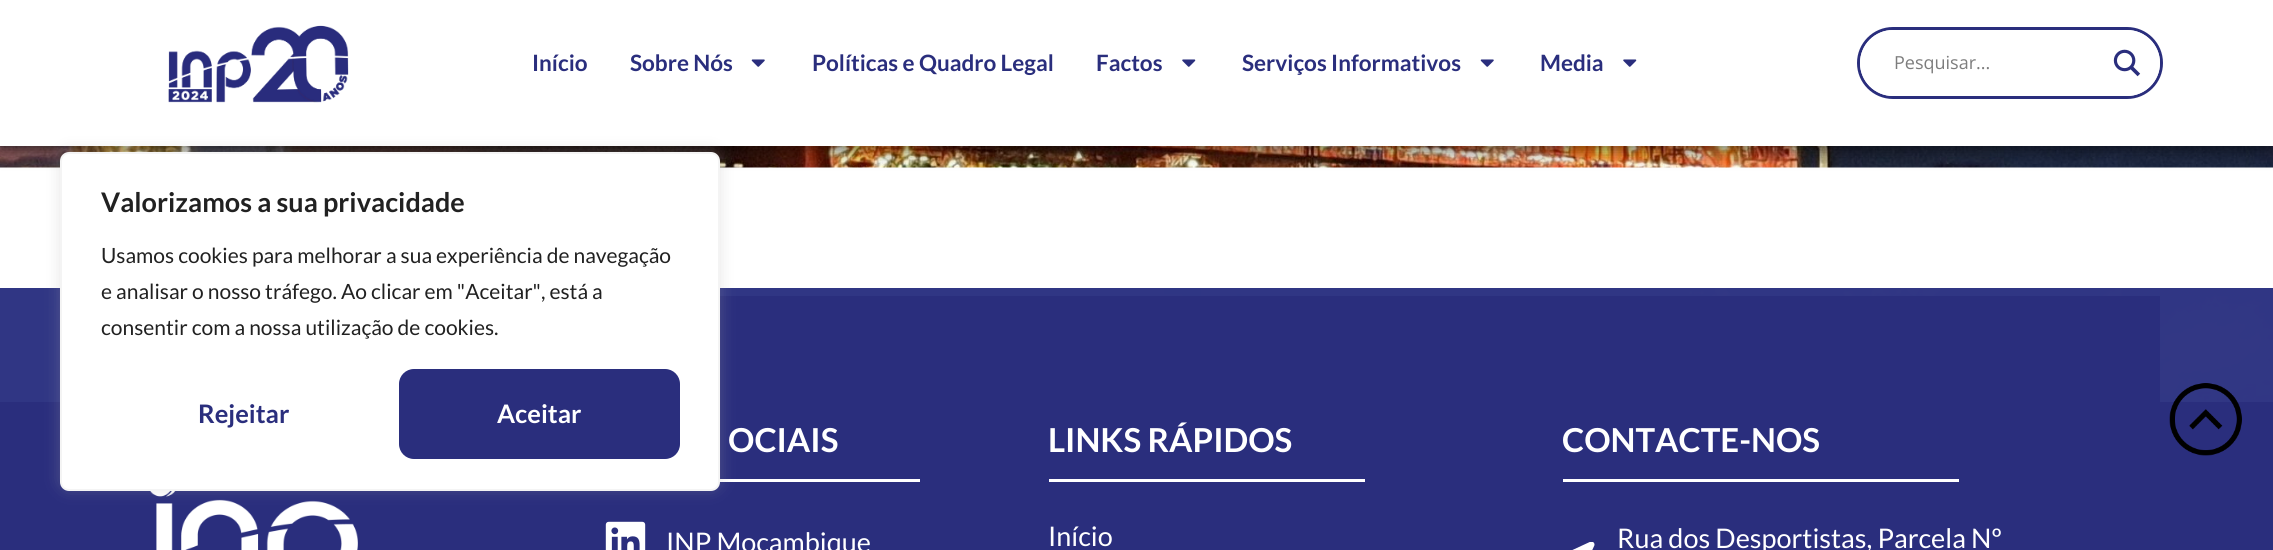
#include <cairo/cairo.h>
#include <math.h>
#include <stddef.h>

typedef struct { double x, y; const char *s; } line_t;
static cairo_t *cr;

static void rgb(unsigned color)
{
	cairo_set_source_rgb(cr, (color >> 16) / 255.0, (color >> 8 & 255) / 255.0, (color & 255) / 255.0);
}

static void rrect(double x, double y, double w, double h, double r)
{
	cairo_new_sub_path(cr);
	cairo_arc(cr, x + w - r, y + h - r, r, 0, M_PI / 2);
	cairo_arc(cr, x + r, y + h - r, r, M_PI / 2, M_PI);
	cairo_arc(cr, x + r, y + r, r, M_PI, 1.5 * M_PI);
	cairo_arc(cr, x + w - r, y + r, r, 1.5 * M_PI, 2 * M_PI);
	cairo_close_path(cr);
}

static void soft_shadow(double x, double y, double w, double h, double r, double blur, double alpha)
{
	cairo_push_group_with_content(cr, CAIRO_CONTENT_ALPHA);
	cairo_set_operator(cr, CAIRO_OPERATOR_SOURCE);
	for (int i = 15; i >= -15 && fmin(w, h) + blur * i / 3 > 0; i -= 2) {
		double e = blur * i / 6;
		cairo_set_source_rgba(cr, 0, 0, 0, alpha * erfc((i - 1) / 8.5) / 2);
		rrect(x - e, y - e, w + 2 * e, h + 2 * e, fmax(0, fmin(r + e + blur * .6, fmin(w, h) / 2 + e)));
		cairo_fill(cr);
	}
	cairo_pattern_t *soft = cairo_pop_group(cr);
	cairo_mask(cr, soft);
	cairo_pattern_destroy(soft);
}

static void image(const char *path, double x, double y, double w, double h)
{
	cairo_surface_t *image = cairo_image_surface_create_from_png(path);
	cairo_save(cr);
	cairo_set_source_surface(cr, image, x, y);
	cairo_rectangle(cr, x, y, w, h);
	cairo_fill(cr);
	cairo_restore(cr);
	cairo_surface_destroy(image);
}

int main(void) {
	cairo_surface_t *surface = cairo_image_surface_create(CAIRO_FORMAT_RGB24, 2273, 550);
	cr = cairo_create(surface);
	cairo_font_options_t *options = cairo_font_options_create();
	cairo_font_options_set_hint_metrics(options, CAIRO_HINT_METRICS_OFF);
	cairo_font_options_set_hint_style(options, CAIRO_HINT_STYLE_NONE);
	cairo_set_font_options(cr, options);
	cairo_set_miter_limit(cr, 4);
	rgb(0xffffff);
	cairo_paint(cr);
	image("img/5.png", 0, 146, 2273, 22);
	rgb(0x000000);
	soft_shadow(0, 6, 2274, 146, 0, 7.5, 0.5);
	rgb(0xffffff);
	cairo_rectangle(cr, 0, 0, 2273, 146);
	cairo_fill(cr);
	image("img/1.png", 168, 25, 181, 78);
	image("img/2.png", 751, 59, 14, 8);
	image("img/3.png", 1182, 59, 14, 8);
	image("img/2.png", 1480, 59, 14, 8);
	image("img/3.png", 1623, 59, 14, 8);
	rrect(1858.5, 28.5, 303, 69, 34.5);
	rgb(0x2a2e7d);
	cairo_set_line_width(cr, 3);
	cairo_stroke(cr);
	rgb(0xffffff);
	rrect(1860, 30, 300, 66, 33);
	cairo_fill(cr);
	image("img/4.png", 2113, 49, 28, 28);
	rgb(0x2a2e7d);
	cairo_rectangle(cr, 0, 288, 2273, 262);
	cairo_fill(cr);
	image("img/6.png", 0, 288, 2273, 114);
	cairo_rectangle(cr, 114, 296, 2046, 106);
	cairo_fill(cr);
	image("img/7.png", 150, 491, 208, 59);
	rgb(0xffffff);
	cairo_rectangle(cr, 720, 479, 200, 3);
	cairo_fill(cr);
	rgb(0xacabab);
	soft_shadow(60, 150, 660, 339, 9, 7.5, 0.3);
	rgb(0xffffff);
	rrect(61, 153, 658, 337, 8);
	cairo_fill_preserve(cr);
	rgb(0xf4f4f4);
	cairo_set_line_width(cr, 2);
	cairo_stroke(cr);
	rgb(0x2a2e7d);
	rrect(399, 369, 281, 90, 15);
	cairo_fill(cr);
	image("img/8.png", 605, 521, 41, 29);
	rgb(0xffffff);
	cairo_rectangle(cr, 1049, 479, 316, 3);
	cairo_fill(cr);
	cairo_rectangle(cr, 1563, 479, 396, 3);
	cairo_fill(cr);
	image("img/9.png", 1572, 542, 23, 8);
	image("img/10.png", 2169, 383, 73, 73);
	cairo_select_font_face(cr, "Lato", CAIRO_FONT_SLANT_NORMAL, CAIRO_FONT_WEIGHT_BOLD);
	cairo_set_font_size(cr, 22.5);
	rgb(0x2a2e7d);
	{
		static const line_t items[] = {
			{532, 71, "Início"},
			{630, 71, "Sobre Nós"},
			{812, 71, "Políticas e Quadro Legal"},
			{1096, 71, "Factos"},
			{1242, 71, "Serviços Informativos"},
			{1540, 71, "Media"},
		};
		for (size_t i = 0; i < sizeof items / sizeof *items; i++) {
			cairo_move_to(cr, items[i].x, items[i].y);
			cairo_show_text(cr, items[i].s);
		}
	}
	cairo_select_font_face(cr, "Open Sans", CAIRO_FONT_SLANT_NORMAL, CAIRO_FONT_WEIGHT_NORMAL);
	cairo_set_font_size(cr, 18);
	rgb(0x7d7d7d);
	cairo_move_to(cr, 1894, 69);
	cairo_show_text(cr, "Pesquisar...");
	cairo_select_font_face(cr, "Lato", CAIRO_FONT_SLANT_NORMAL, CAIRO_FONT_WEIGHT_BOLD);
	cairo_set_font_size(cr, 27);
	rgb(0x212121);
	cairo_move_to(cr, 101, 212);
	cairo_show_text(cr, "Valorizamos a sua privacidade");
	cairo_select_font_face(cr, "Lato", CAIRO_FONT_SLANT_NORMAL, CAIRO_FONT_WEIGHT_NORMAL);
	cairo_set_font_size(cr, 21);
	{
		static const line_t items[] = {
			{101, 263, "Usamos cookies para melhorar a sua experiência de navegação"},
			{101, 299, "e analisar o nosso tráfego. Ao clicar em \"Aceitar\", está a"},
			{101, 335, "consentir com a nossa utilização de cookies."},
		};
		for (size_t i = 0; i < sizeof items / sizeof *items; i++) {
			cairo_move_to(cr, items[i].x, items[i].y);
			cairo_show_text(cr, items[i].s);
		}
	}
	cairo_select_font_face(cr, "Lato", CAIRO_FONT_SLANT_NORMAL, CAIRO_FONT_WEIGHT_BOLD);
	cairo_set_font_size(cr, 25.5);
	rgb(0x2a2e7d);
	cairo_move_to(cr, 198, 423);
	cairo_show_text(cr, "Rejeitar");
	rgb(0xffffff);
	cairo_move_to(cr, 497, 423);
	cairo_show_text(cr, "Aceitar");
	cairo_set_font_size(cr, 33);
	cairo_move_to(cr, 728, 452);
	cairo_show_text(cr, "OCIAIS");
	cairo_select_font_face(cr, "Lato", CAIRO_FONT_SLANT_NORMAL, CAIRO_FONT_WEIGHT_NORMAL);
	cairo_set_font_size(cr, 27);
	cairo_move_to(cr, 666, 552);
	cairo_show_text(cr, "INP Moçambique");
	cairo_select_font_face(cr, "Lato", CAIRO_FONT_SLANT_NORMAL, CAIRO_FONT_WEIGHT_BOLD);
	cairo_set_font_size(cr, 33);
	cairo_move_to(cr, 1048, 452);
	cairo_show_text(cr, "LINKS RÁPIDOS");
	cairo_select_font_face(cr, "Lato", CAIRO_FONT_SLANT_NORMAL, CAIRO_FONT_WEIGHT_NORMAL);
	cairo_set_font_size(cr, 27);
	cairo_move_to(cr, 1048, 546);
	cairo_show_text(cr, "Início");
	cairo_select_font_face(cr, "Lato", CAIRO_FONT_SLANT_NORMAL, CAIRO_FONT_WEIGHT_BOLD);
	cairo_set_font_size(cr, 33);
	cairo_move_to(cr, 1562, 452);
	cairo_show_text(cr, "CONTACTE-NOS");
	cairo_select_font_face(cr, "Lato", CAIRO_FONT_SLANT_NORMAL, CAIRO_FONT_WEIGHT_NORMAL);
	cairo_set_font_size(cr, 27);
	cairo_move_to(cr, 1617, 548);
	cairo_show_text(cr, "Rua dos Desportistas, Parcela Nº");
	cairo_surface_write_to_png(surface, "page.png");
	cairo_font_options_destroy(options);
	cairo_destroy(cr);
	cairo_surface_destroy(surface);
	return 0;
}
